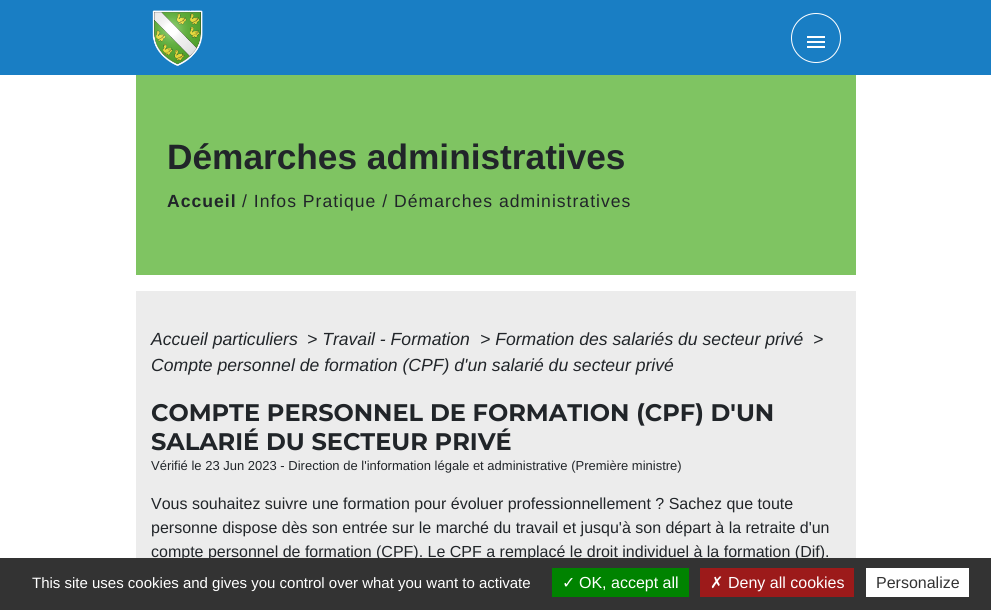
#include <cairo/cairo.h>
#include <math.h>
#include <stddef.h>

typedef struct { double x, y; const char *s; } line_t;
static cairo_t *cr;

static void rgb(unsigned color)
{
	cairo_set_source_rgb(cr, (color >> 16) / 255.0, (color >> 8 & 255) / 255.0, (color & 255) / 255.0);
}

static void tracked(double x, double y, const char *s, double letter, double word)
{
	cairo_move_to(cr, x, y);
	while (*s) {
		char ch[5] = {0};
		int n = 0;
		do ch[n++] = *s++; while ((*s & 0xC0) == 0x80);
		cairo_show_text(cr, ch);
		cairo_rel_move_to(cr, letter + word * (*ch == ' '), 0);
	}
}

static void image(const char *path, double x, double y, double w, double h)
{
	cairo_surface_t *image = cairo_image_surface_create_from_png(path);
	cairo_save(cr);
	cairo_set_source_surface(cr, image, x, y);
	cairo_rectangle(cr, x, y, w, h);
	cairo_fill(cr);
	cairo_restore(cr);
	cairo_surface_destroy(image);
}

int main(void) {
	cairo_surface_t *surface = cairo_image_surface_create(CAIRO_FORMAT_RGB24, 991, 610);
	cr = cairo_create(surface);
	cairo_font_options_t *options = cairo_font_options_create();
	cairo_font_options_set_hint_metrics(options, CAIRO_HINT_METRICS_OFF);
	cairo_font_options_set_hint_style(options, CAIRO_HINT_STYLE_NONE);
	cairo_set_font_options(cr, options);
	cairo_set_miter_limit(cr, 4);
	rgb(0xffffff);
	cairo_paint(cr);
	rgb(0x197ec4);
	cairo_rectangle(cr, 0, 0, 991, 75);
	cairo_fill(cr);
	image("img/1.png", 152, 10, 51, 56);
	cairo_arc(cr, 816, 38, 24.5, 0, 2 * M_PI);
	rgb(0xffffff);
	cairo_set_line_width(cr, 1);
	cairo_stroke(cr);
	image("img/2.png", 807, 36, 18, 12);
	rgb(0x7fc462);
	cairo_rectangle(cr, 136, 75, 720, 200);
	cairo_fill(cr);
	rgb(0xececec);
	cairo_rectangle(cr, 136, 291, 720, 267);
	cairo_fill(cr);
	cairo_select_font_face(cr, "Liberation Sans", CAIRO_FONT_SLANT_NORMAL, CAIRO_FONT_WEIGHT_BOLD);
	cairo_set_font_size(cr, 35.25);
	rgb(0x212529);
	cairo_move_to(cr, 167, 169);
	cairo_show_text(cr, "Démarches administratives");
	cairo_set_font_size(cr, 17.6);
	tracked(167, 207, "Accueil", 1, 0);
	cairo_select_font_face(cr, "Liberation Sans", CAIRO_FONT_SLANT_NORMAL, CAIRO_FONT_WEIGHT_NORMAL);
	tracked(242, 207, "/ Infos Pratique / Démarches administratives", 1, 0);
	cairo_select_font_face(cr, "Liberation Sans", CAIRO_FONT_SLANT_ITALIC, CAIRO_FONT_WEIGHT_NORMAL);
	{
		static const line_t items[] = {
			{151, 345, "Accueil particuliers"},
			{307, 345, "> Travail - Formation"},
			{480, 345, "> Formation des salariés du secteur privé"},
			{813, 345, ">"},
			{151, 371, "Compte personnel de formation (CPF) d'un salarié du secteur privé"},
		};
		for (size_t i = 0; i < sizeof items / sizeof *items; i++) {
			cairo_move_to(cr, items[i].x, items[i].y);
			cairo_show_text(cr, items[i].s);
		}
	}
	cairo_select_font_face(cr, "Montserrat", CAIRO_FONT_SLANT_NORMAL, CAIRO_FONT_WEIGHT_BOLD);
	cairo_set_font_size(cr, 24);
	cairo_move_to(cr, 151, 421);
	cairo_show_text(cr, "COMPTE PERSONNEL DE FORMATION (CPF) D'UN");
	cairo_move_to(cr, 151, 450);
	cairo_show_text(cr, "SALARIÉ DU SECTEUR PRIVÉ");
	cairo_select_font_face(cr, "Liberation Sans", CAIRO_FONT_SLANT_NORMAL, CAIRO_FONT_WEIGHT_NORMAL);
	cairo_set_font_size(cr, 13);
	cairo_move_to(cr, 151, 470);
	cairo_show_text(cr, "Vérifié le 23 Jun 2023 - Direction de l'information légale et administrative (Première ministre)");
	cairo_set_font_size(cr, 16);
	{
		static const line_t items[] = {
			{151, 509, "Vous souhaitez suivre une formation pour évoluer professionnellement ? Sachez que toute"},
			{151, 533, "personne dispose dès son entrée sur le marché du travail et jusqu'à son départ à la retraite d'un"},
			{151, 557, "compte personnel de formation (CPF). Le CPF a remplacé le droit individuel à la formation (Dif)."},
		};
		for (size_t i = 0; i < sizeof items / sizeof *items; i++) {
			cairo_move_to(cr, items[i].x, items[i].y);
			cairo_show_text(cr, items[i].s);
		}
	}
	rgb(0x333333);
	cairo_rectangle(cr, 0, 558, 991, 52);
	cairo_fill(cr);
	cairo_set_font_size(cr, 15);
	rgb(0xffffff);
	cairo_move_to(cr, 32, 588);
	cairo_show_text(cr, "This site uses cookies and gives you control over what you want to activate");
	rgb(0x008300);
	cairo_rectangle(cr, 552, 568, 137, 29);
	cairo_fill(cr);
	cairo_select_font_face(cr, "DejaVu Sans", CAIRO_FONT_SLANT_NORMAL, CAIRO_FONT_WEIGHT_NORMAL);
	cairo_set_font_size(cr, 16);
	rgb(0xffffff);
	cairo_move_to(cr, 562, 588);
	cairo_show_text(cr, "✓");
	cairo_select_font_face(cr, "Liberation Sans", CAIRO_FONT_SLANT_NORMAL, CAIRO_FONT_WEIGHT_NORMAL);
	cairo_move_to(cr, 579, 588);
	cairo_show_text(cr, "OK, accept all");
	rgb(0x9c1a1a);
	cairo_rectangle(cr, 700, 568, 154, 29);
	cairo_fill(cr);
	cairo_select_font_face(cr, "DejaVu Sans", CAIRO_FONT_SLANT_NORMAL, CAIRO_FONT_WEIGHT_NORMAL);
	rgb(0xffffff);
	cairo_move_to(cr, 710, 588);
	cairo_show_text(cr, "✗");
	cairo_select_font_face(cr, "Liberation Sans", CAIRO_FONT_SLANT_NORMAL, CAIRO_FONT_WEIGHT_NORMAL);
	cairo_move_to(cr, 728, 588);
	cairo_show_text(cr, "Deny all cookies");
	cairo_rectangle(cr, 866, 568, 103, 29);
	cairo_fill(cr);
	rgb(0x333333);
	cairo_move_to(cr, 876, 588);
	cairo_show_text(cr, "Personalize");
	cairo_surface_write_to_png(surface, "page.png");
	cairo_font_options_destroy(options);
	cairo_destroy(cr);
	cairo_surface_destroy(surface);
	return 0;
}
